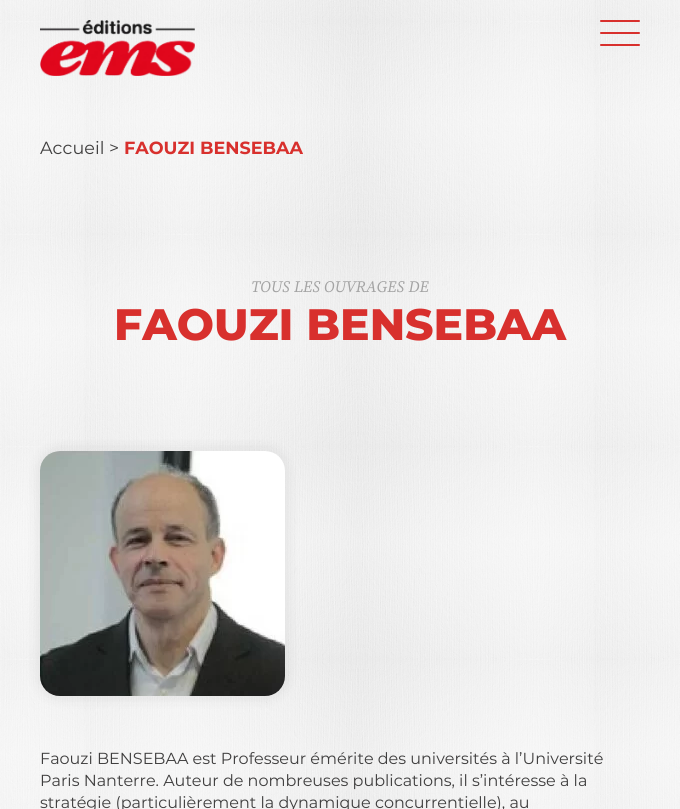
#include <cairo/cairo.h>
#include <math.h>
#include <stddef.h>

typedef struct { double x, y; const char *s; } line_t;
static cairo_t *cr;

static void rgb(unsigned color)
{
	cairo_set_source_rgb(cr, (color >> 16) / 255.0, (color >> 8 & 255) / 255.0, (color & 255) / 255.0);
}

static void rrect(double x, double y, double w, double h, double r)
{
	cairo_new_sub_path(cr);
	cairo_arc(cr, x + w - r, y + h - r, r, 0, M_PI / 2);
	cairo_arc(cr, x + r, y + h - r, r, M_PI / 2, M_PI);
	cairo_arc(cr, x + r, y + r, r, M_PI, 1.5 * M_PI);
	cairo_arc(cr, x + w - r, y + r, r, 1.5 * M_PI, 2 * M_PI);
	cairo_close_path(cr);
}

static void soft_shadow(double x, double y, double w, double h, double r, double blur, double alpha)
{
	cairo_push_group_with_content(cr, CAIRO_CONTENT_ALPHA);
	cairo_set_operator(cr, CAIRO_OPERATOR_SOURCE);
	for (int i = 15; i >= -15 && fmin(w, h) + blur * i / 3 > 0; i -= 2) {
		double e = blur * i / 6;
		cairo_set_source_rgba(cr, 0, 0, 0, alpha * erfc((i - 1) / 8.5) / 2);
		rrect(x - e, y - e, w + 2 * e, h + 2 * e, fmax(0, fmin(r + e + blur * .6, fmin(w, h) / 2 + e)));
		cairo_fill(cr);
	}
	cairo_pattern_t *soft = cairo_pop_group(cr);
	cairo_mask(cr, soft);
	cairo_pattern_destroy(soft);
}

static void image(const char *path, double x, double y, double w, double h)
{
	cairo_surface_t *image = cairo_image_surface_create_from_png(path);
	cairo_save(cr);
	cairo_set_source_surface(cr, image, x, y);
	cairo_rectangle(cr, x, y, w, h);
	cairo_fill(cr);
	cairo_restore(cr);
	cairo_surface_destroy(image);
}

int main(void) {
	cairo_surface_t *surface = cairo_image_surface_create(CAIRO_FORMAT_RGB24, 680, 809);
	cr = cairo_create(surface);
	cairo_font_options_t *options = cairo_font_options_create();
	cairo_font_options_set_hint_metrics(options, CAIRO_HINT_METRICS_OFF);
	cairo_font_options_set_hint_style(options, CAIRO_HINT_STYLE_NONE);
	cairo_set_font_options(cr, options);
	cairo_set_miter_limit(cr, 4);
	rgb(0xffffff);
	cairo_paint(cr);
	image("img/1.png", 0, 0, 680, 809);
	image("img/2.png", 40, 20, 155, 56);
	rgb(0xd8302d);
	rrect(600, 20, 40, 2, 1);
	cairo_fill(cr);
	rrect(600, 32, 40, 2, 1);
	cairo_fill(cr);
	rrect(600, 44, 40, 2, 1);
	cairo_fill(cr);
	rgb(0x000000);
	soft_shadow(35, 446, 255, 255, 25, 5, 0.05);
	image("img/3.png", 40, 451, 245, 245);
	cairo_select_font_face(cr, "Montserrat", CAIRO_FONT_SLANT_NORMAL, CAIRO_FONT_WEIGHT_NORMAL);
	cairo_set_font_size(cr, 17.6);
	rgb(0x3f3e3e);
	cairo_move_to(cr, 40, 154);
	cairo_show_text(cr, "Accueil");
	cairo_move_to(cr, 109, 154);
	cairo_show_text(cr, ">");
	cairo_select_font_face(cr, "Montserrat", CAIRO_FONT_SLANT_NORMAL, CAIRO_FONT_WEIGHT_BOLD);
	rgb(0xd8302d);
	cairo_move_to(cr, 124, 154);
	cairo_show_text(cr, "FAOUZI BENSEBAA");
	cairo_select_font_face(cr, "Source Serif Pro", CAIRO_FONT_SLANT_ITALIC, CAIRO_FONT_WEIGHT_NORMAL);
	cairo_set_font_size(cr, 16);
	rgb(0xa3a3a3);
	cairo_move_to(cr, 251, 292);
	cairo_show_text(cr, "TOUS LES OUVRAGES DE");
	cairo_select_font_face(cr, "Montserrat ExtraBold", CAIRO_FONT_SLANT_NORMAL, CAIRO_FONT_WEIGHT_NORMAL);
	cairo_set_font_size(cr, 44);
	rgb(0xd8302d);
	cairo_move_to(cr, 114, 340);
	cairo_show_text(cr, "FAOUZI BENSEBAA");
	cairo_select_font_face(cr, "Montserrat", CAIRO_FONT_SLANT_NORMAL, CAIRO_FONT_WEIGHT_NORMAL);
	cairo_set_font_size(cr, 16);
	rgb(0x3f3e3e);
	{
		static const line_t items[] = {
			{40, 764, "Faouzi BENSEBAA est Professeur émérite des universités à l’Université"},
			{40, 786, "Paris Nanterre. Auteur de nombreuses publications, il s’intéresse à la"},
			{40, 808, "stratégie (particulièrement la dynamique concurrentielle), au"},
		};
		for (size_t i = 0; i < sizeof items / sizeof *items; i++) {
			cairo_move_to(cr, items[i].x, items[i].y);
			cairo_show_text(cr, items[i].s);
		}
	}
	cairo_surface_write_to_png(surface, "page.png");
	cairo_font_options_destroy(options);
	cairo_destroy(cr);
	cairo_surface_destroy(surface);
	return 0;
}
